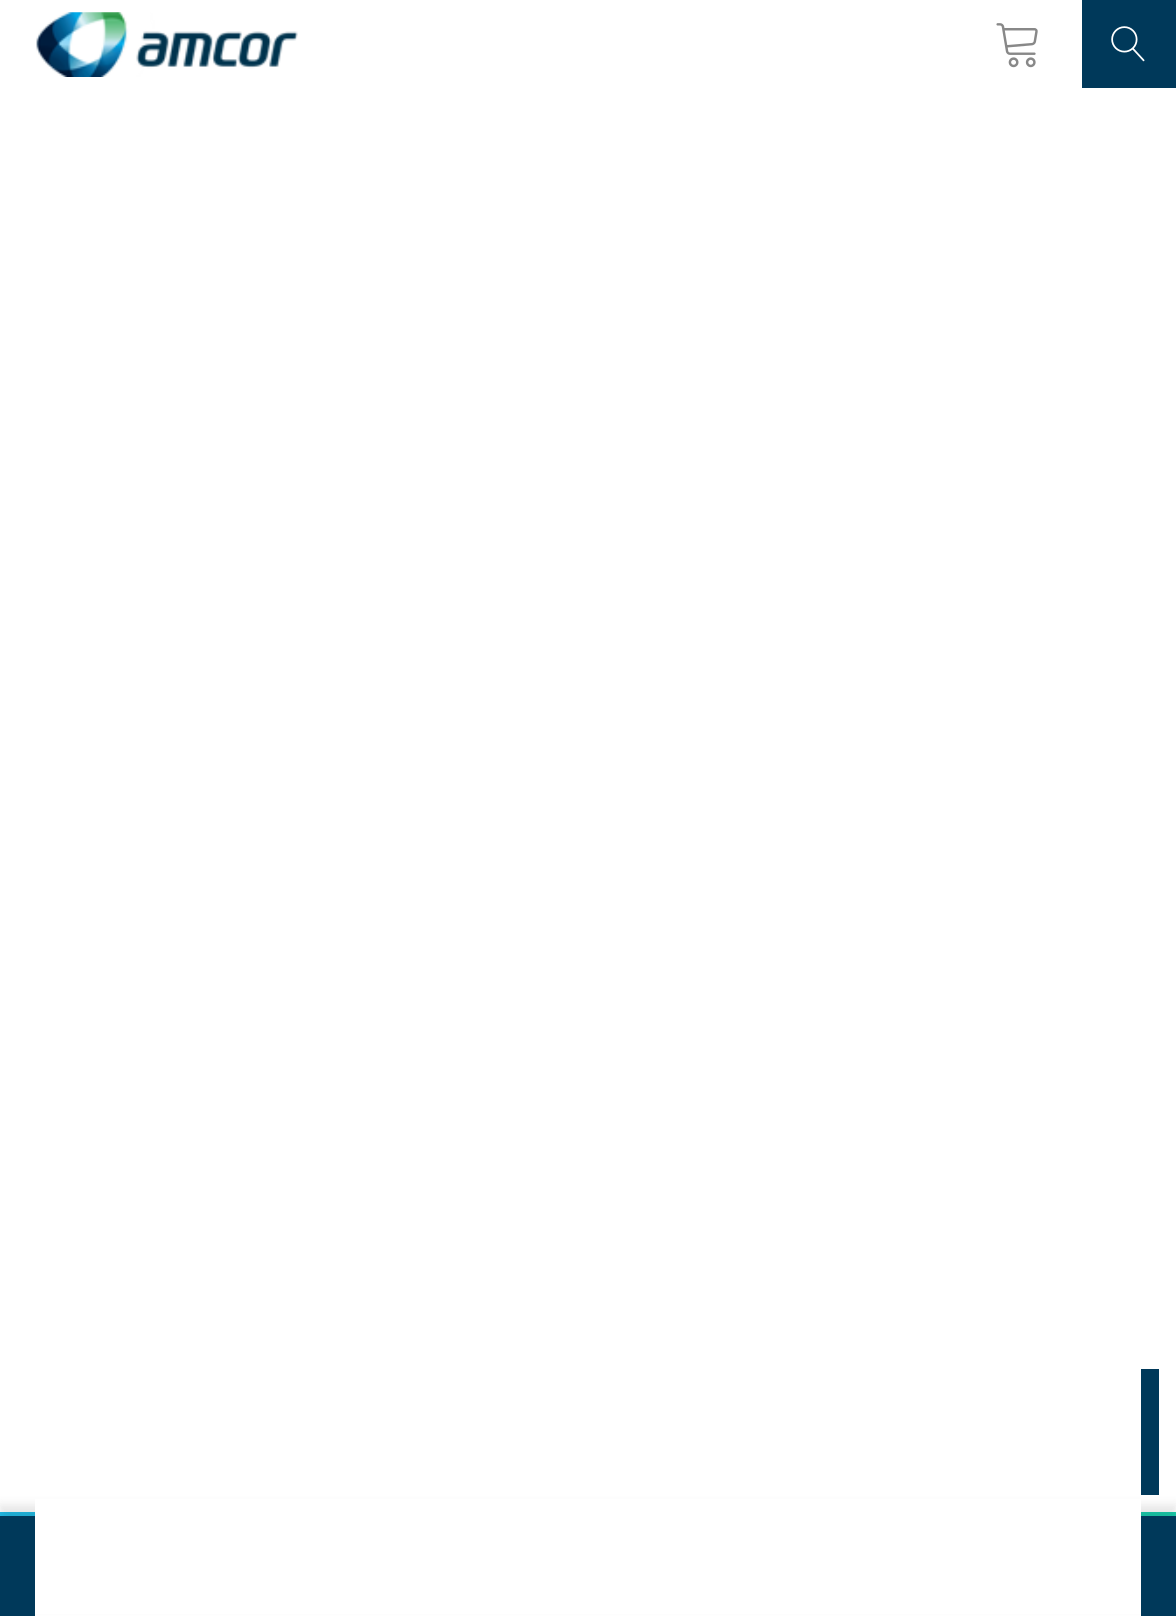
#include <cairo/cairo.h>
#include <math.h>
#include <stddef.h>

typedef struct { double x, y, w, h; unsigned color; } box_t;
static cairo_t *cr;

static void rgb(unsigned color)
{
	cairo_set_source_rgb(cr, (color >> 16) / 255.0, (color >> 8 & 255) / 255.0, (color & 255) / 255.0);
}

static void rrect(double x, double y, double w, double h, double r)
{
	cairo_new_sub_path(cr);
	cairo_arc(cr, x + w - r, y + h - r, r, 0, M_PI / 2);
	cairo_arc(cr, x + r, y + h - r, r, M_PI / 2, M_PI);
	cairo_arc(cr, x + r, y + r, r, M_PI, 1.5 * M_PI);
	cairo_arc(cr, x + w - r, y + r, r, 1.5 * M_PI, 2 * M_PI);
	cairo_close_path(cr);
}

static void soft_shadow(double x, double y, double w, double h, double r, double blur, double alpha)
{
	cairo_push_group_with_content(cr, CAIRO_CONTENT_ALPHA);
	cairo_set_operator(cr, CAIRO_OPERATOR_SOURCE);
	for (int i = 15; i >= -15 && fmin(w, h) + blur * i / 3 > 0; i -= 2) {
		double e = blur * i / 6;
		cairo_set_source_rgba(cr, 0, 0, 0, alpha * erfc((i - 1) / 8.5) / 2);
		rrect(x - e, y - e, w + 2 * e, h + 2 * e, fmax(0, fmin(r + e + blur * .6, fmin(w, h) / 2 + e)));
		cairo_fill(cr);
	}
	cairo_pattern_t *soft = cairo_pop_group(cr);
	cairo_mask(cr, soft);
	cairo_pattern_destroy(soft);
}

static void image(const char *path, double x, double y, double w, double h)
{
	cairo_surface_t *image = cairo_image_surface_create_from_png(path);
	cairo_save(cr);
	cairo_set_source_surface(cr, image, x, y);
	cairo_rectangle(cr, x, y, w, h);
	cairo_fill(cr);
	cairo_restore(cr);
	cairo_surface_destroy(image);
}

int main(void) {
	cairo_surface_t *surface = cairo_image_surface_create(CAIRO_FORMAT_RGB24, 1176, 1616);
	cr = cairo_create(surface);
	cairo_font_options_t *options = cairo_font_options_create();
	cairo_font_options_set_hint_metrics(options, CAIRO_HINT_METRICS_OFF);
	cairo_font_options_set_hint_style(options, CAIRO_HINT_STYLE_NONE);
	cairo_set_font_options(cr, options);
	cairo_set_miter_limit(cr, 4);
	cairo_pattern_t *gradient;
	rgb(0xffffff);
	cairo_paint(cr);
	image("img/1.png", 36, 12, 262, 65);
	image("img/2.png", 996, 23, 42, 45);
	rgb(0x00395a);
	cairo_rectangle(cr, 1082, 0, 94, 88);
	cairo_fill(cr);
	image("img/3.png", 1111, 26, 34, 36);
	cairo_rectangle(cr, 1141, 1369, 18, 126);
	cairo_fill(cr);
	gradient = cairo_pattern_create_linear(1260, 1609, -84, 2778);
	cairo_pattern_add_color_stop_rgba(gradient, 0, 0.106, 0.804, 0.675, 1);
	cairo_pattern_add_color_stop_rgba(gradient, 0.55, 0.141, 0.733, 0.933, 1);
	cairo_pattern_add_color_stop_rgba(gradient, 1, 0.141, 0.733, 0.933, 1);
	cairo_set_source(cr, gradient);
	cairo_pattern_destroy(gradient);
	cairo_rectangle(cr, 0, 1512, 1176, 4);
	cairo_fill(cr);
	rgb(0x000000);
	soft_shadow(0, 1505, 1176, 103, 0, 5, 0.1);
	{
		static const box_t items[] = {
			{0, 1516, 35, 100, 0x00395a},
			{1141, 1516, 35, 100, 0x00395a},
			{35, 1499, 1106, 115, 0xffffff},
		};
		for (size_t i = 0; i < sizeof items / sizeof *items; i++) {
			rgb(items[i].color);
			cairo_rectangle(cr, items[i].x, items[i].y, items[i].w, items[i].h);
			cairo_fill(cr);
		}
	}
	cairo_surface_write_to_png(surface, "page.png");
	cairo_font_options_destroy(options);
	cairo_destroy(cr);
	cairo_surface_destroy(surface);
	return 0;
}
